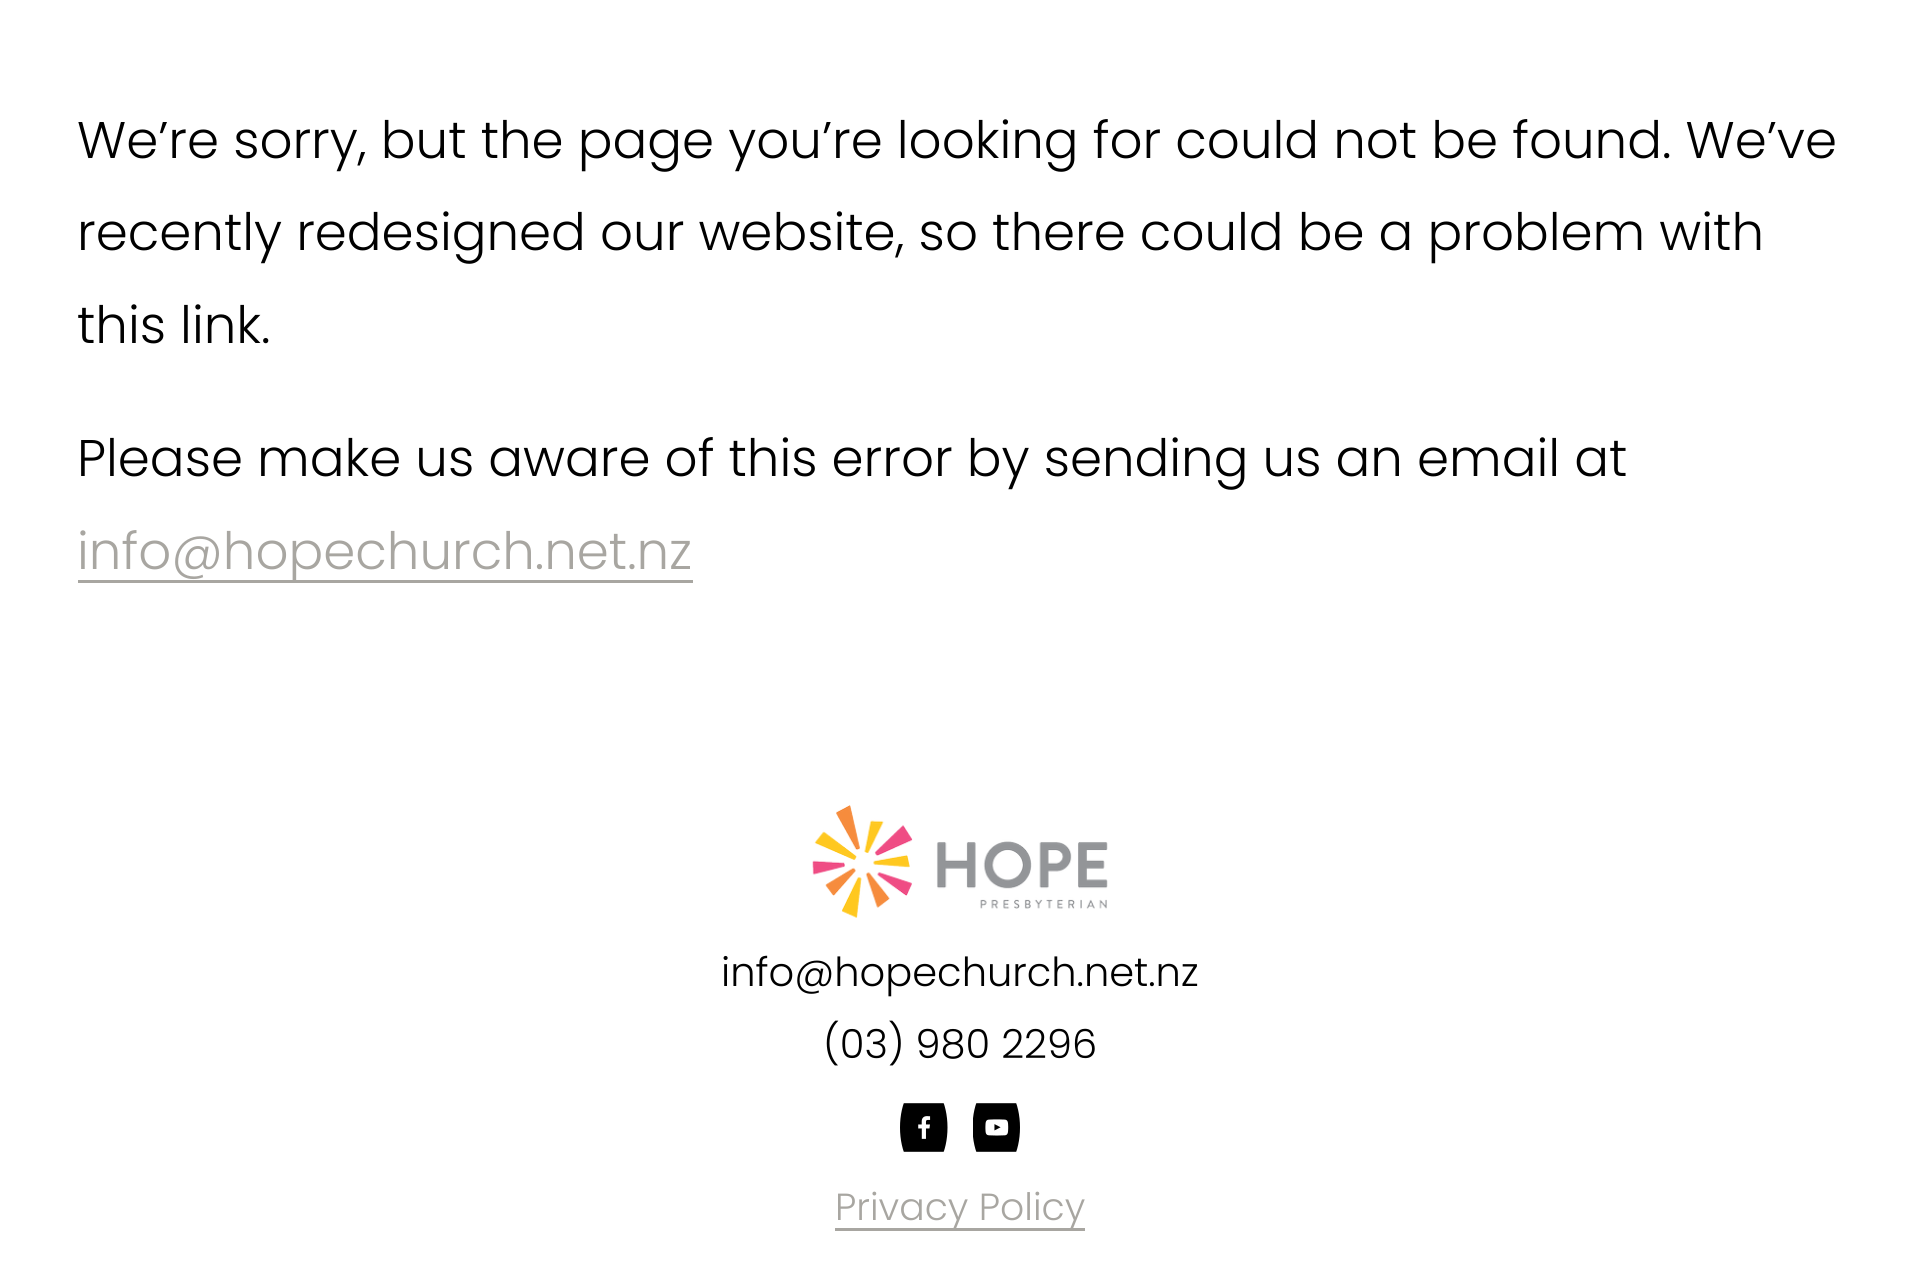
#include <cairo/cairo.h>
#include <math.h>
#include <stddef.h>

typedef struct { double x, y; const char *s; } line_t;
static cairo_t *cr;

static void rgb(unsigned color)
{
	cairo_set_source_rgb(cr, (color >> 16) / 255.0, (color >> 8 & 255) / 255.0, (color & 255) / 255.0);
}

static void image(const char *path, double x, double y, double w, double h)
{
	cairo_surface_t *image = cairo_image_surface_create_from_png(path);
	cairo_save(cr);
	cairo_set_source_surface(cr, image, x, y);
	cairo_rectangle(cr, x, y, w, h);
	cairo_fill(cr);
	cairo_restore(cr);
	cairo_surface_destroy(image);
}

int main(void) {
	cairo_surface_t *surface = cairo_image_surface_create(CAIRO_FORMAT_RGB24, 1919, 1274);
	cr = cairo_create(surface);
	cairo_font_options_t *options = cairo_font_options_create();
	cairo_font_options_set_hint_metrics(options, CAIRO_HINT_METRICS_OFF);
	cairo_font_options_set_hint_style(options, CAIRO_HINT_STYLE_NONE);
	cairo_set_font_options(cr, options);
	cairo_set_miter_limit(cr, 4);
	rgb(0xffffff);
	cairo_paint(cr);
	rgb(0xa8a6a1);
	cairo_rectangle(cr, 78, 580, 615, 3);
	cairo_fill(cr);
	image("img/1.png", 812, 805, 296, 113);
	image("img/2.png", 900, 1103, 48, 49);
	image("img/3.png", 973, 1103, 47, 49);
	cairo_rectangle(cr, 835, 1228, 250, 3);
	cairo_fill(cr);
	cairo_select_font_face(cr, "Poppins Light", CAIRO_FONT_SLANT_NORMAL, CAIRO_FONT_WEIGHT_NORMAL);
	cairo_set_font_size(cr, 51.5);
	rgb(0x000000);
	{
		static const line_t items[] = {
			{77, 158, "We’re sorry, but the page you’re looking for could not be found. We’ve"},
			{77, 250, "recently redesigned our website, so there could be a problem with"},
			{77, 343, "this link."},
			{77, 476, "Please make us aware of this error by sending us an email at"},
		};
		for (size_t i = 0; i < sizeof items / sizeof *items; i++) {
			cairo_move_to(cr, items[i].x, items[i].y);
			cairo_show_text(cr, items[i].s);
		}
	}
	rgb(0xa8a6a1);
	cairo_move_to(cr, 77, 569);
	cairo_show_text(cr, "info@hopechurch.net.nz");
	cairo_set_font_size(cr, 40);
	rgb(0x000000);
	cairo_move_to(cr, 721, 986);
	cairo_show_text(cr, "info@hopechurch.net.nz");
	cairo_move_to(cr, 823, 1058);
	cairo_show_text(cr, "(03) 980 2296");
	cairo_set_font_size(cr, 37.75);
	rgb(0xa8a6a1);
	cairo_move_to(cr, 835, 1220);
	cairo_show_text(cr, "Privacy Policy");
	cairo_surface_write_to_png(surface, "page.png");
	cairo_font_options_destroy(options);
	cairo_destroy(cr);
	cairo_surface_destroy(surface);
	return 0;
}
